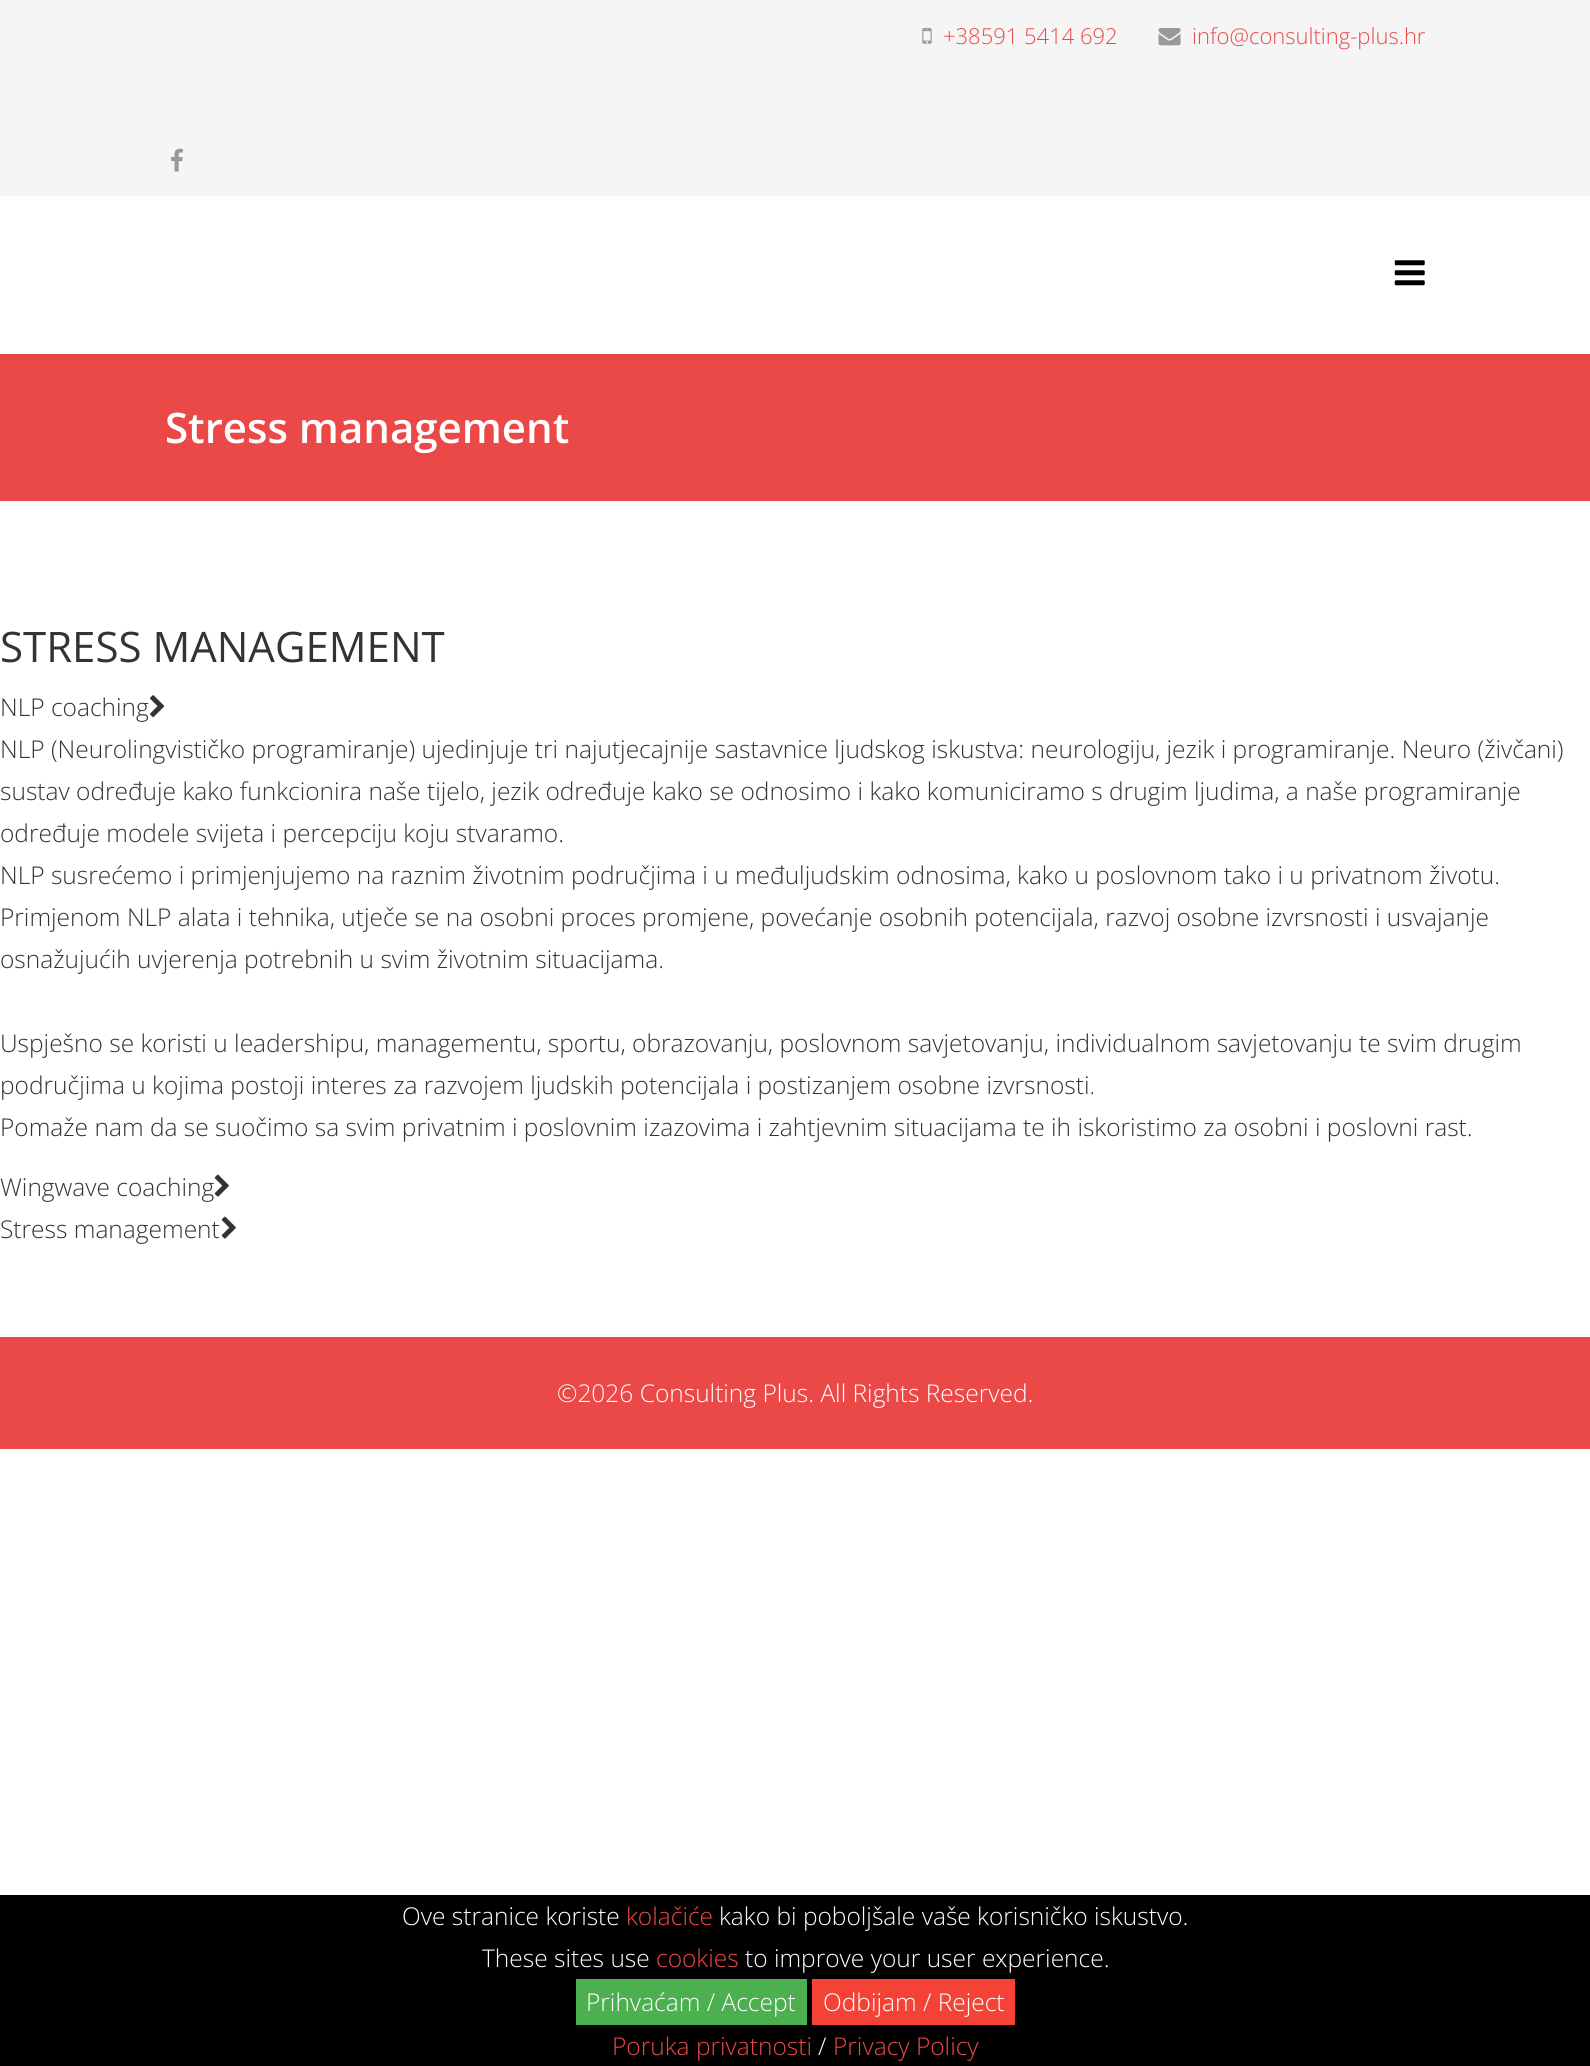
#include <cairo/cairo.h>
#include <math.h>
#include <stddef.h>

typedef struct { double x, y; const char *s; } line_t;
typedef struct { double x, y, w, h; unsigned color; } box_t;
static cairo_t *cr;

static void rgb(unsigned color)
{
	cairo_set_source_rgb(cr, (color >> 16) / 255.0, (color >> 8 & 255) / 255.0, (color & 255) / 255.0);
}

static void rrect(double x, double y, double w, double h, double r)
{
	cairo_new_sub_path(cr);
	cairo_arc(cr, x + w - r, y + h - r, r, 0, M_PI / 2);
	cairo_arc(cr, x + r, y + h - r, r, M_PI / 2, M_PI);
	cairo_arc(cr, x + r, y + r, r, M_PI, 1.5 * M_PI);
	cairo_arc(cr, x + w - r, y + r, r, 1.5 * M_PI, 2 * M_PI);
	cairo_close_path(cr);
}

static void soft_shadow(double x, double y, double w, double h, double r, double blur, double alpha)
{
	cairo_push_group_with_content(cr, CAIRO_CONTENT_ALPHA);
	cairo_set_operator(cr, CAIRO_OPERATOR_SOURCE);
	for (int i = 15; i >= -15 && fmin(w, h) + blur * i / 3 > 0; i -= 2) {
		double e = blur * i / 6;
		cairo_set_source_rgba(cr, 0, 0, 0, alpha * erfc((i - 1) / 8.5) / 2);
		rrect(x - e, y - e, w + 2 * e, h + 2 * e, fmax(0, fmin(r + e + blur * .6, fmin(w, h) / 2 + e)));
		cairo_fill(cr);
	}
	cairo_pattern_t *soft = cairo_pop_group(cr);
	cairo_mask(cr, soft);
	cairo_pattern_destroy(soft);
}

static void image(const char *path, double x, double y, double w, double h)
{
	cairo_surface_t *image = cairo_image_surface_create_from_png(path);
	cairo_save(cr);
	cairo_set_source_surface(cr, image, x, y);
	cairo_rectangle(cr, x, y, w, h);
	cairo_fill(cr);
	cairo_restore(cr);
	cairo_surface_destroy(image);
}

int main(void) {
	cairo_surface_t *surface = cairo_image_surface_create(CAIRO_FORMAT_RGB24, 1590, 2066);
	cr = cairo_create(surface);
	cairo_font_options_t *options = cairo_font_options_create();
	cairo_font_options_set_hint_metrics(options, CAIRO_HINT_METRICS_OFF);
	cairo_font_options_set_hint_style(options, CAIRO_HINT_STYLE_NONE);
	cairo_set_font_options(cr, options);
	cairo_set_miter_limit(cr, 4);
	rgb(0xffffff);
	cairo_paint(cr);
	rgb(0xf5f5f5);
	cairo_rectangle(cr, 0, 0, 1590, 196);
	cairo_fill(cr);
	image("img/1.png", 922, 28, 10, 16);
	image("img/2.png", 1158, 28, 23, 18);
	image("img/3.png", 171, 148, 12, 24);
	rgb(0xeb4947);
	cairo_rectangle(cr, 0, 354, 1590, 147);
	cairo_fill(cr);
	rgb(0x000000);
	soft_shadow(0, 201, 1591, 158, 0, 2.5, 0.05);
	rgb(0xffffff);
	cairo_rectangle(cr, 0, 199, 1590, 155);
	cairo_fill(cr);
	image("img/4.png", 1394, 260, 31, 26);
	image("img/5.png", 150, 695, 15, 23);
	image("img/6.png", 214, 1174, 15, 23);
	image("img/6.png", 221, 1216, 15, 23);
	{
		static const box_t items[] = {
			{0, 1337, 1590, 112, 0xeb4947},
			{0, 1895, 1590, 171, 0x000000},
			{576, 1979, 231, 46, 0x4caf50},
			{812, 1979, 203, 46, 0xf44336},
		};
		for (size_t i = 0; i < sizeof items / sizeof *items; i++) {
			rgb(items[i].color);
			cairo_rectangle(cr, items[i].x, items[i].y, items[i].w, items[i].h);
			cairo_fill(cr);
		}
	}
	cairo_select_font_face(cr, "Open Sans Light", CAIRO_FONT_SLANT_NORMAL, CAIRO_FONT_WEIGHT_NORMAL);
	cairo_set_font_size(cr, 22);
	rgb(0xeb4947);
	cairo_move_to(cr, 943, 44);
	cairo_show_text(cr, "+38591 5414 692");
	cairo_move_to(cr, 1192, 44);
	cairo_show_text(cr, "info@consulting-plus.hr");
	cairo_select_font_face(cr, "Open Sans SemiBold", CAIRO_FONT_SLANT_NORMAL, CAIRO_FONT_WEIGHT_NORMAL);
	cairo_set_font_size(cr, 42);
	rgb(0xffffff);
	cairo_move_to(cr, 165, 443);
	cairo_show_text(cr, "Stress management");
	cairo_select_font_face(cr, "Open Sans", CAIRO_FONT_SLANT_NORMAL, CAIRO_FONT_WEIGHT_NORMAL);
	rgb(0x333333);
	cairo_move_to(cr, 0, 662);
	cairo_show_text(cr, "STRESS MANAGEMENT");
	cairo_select_font_face(cr, "Open Sans Light", CAIRO_FONT_SLANT_NORMAL, CAIRO_FONT_WEIGHT_NORMAL);
	cairo_set_font_size(cr, 24.5);
	{
		static const line_t items[] = {
			{0, 716, "NLP coaching"},
			{0, 758, "NLP (Neurolingvističko programiranje) ujedinjuje tri najutjecajnije sastavnice ljudskog iskustva: neurologiju, jezik i programiranje. Neuro (živčani)"},
			{0, 800, "sustav određuje kako funkcionira naše tijelo, jezik određuje kako se odnosimo i kako komuniciramo s drugim ljudima, a naše programiranje"},
			{0, 842, "određuje modele svijeta i percepciju koju stvaramo."},
			{0, 884, "NLP susrećemo i primjenjujemo na raznim životnim područjima i u međuljudskim odnosima, kako u poslovnom tako i u privatnom životu."},
			{0, 926, "Primjenom NLP alata i tehnika, utječe se na osobni proces promjene, povećanje osobnih potencijala, razvoj osobne izvrsnosti i usvajanje"},
			{0, 968, "osnažujućih uvjerenja potrebnih u svim životnim situacijama."},
			{0, 1052, "Uspješno se koristi u leadershipu, managementu, sportu, obrazovanju, poslovnom savjetovanju, individualnom savjetovanju te svim drugim"},
			{0, 1094, "područjima u kojima postoji interes za razvojem ljudskih potencijala i postizanjem osobne izvrsnosti."},
			{0, 1136, "Pomaže nam da se suočimo sa svim privatnim i poslovnim izazovima i zahtjevnim situacijama te ih iskoristimo za osobni i poslovni rast."},
			{0, 1196, "Wingwave coaching"},
			{0, 1238, "Stress management"},
		};
		for (size_t i = 0; i < sizeof items / sizeof *items; i++) {
			cairo_move_to(cr, items[i].x, items[i].y);
			cairo_show_text(cr, items[i].s);
		}
	}
	rgb(0xffffff);
	cairo_move_to(cr, 557, 1402);
	cairo_show_text(cr, "©2026 Consulting Plus. All Rights Reserved.");
	cairo_move_to(cr, 402, 1925);
	cairo_show_text(cr, "Ove stranice koriste");
	rgb(0xeb4947);
	cairo_move_to(cr, 626, 1925);
	cairo_show_text(cr, "kolačiće");
	rgb(0xffffff);
	cairo_move_to(cr, 719, 1925);
	cairo_show_text(cr, "kako bi poboljšale vaše korisničko iskustvo.");
	cairo_move_to(cr, 482, 1967);
	cairo_show_text(cr, "These sites use");
	rgb(0xeb4947);
	cairo_move_to(cr, 656, 1967);
	cairo_show_text(cr, "cookies");
	rgb(0xffffff);
	{
		static const line_t items[] = {
			{745, 1967, "to improve your user experience."},
			{586, 2011, "Prihvaćam / Accept"},
			{823, 2011, "Odbijam / Reject"},
		};
		for (size_t i = 0; i < sizeof items / sizeof *items; i++) {
			cairo_move_to(cr, items[i].x, items[i].y);
			cairo_show_text(cr, items[i].s);
		}
	}
	rgb(0xeb4947);
	cairo_move_to(cr, 612, 2055);
	cairo_show_text(cr, "Poruka privatnosti");
	rgb(0xffffff);
	cairo_move_to(cr, 818, 2055);
	cairo_show_text(cr, "/");
	rgb(0xeb4947);
	cairo_move_to(cr, 833, 2055);
	cairo_show_text(cr, "Privacy Policy");
	cairo_surface_write_to_png(surface, "page.png");
	cairo_font_options_destroy(options);
	cairo_destroy(cr);
	cairo_surface_destroy(surface);
	return 0;
}
